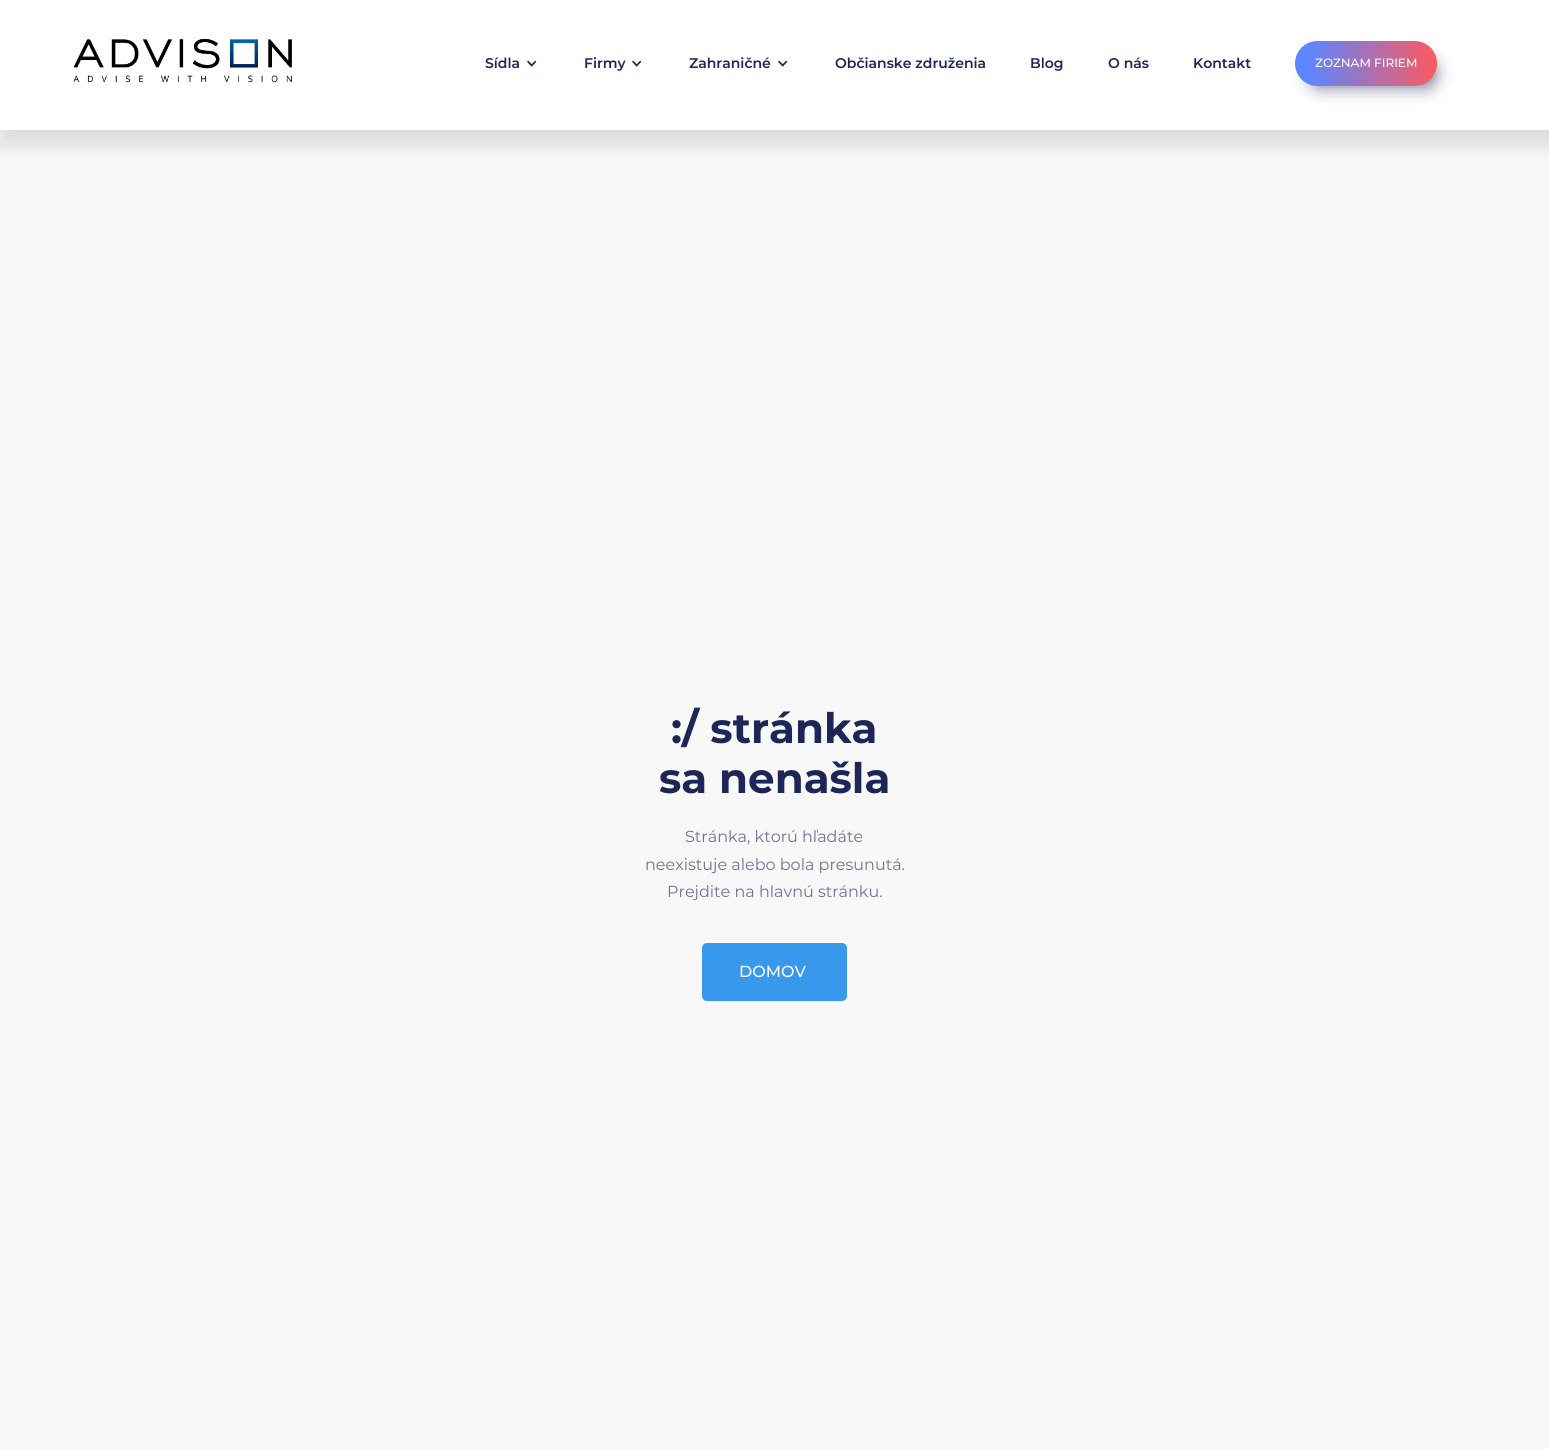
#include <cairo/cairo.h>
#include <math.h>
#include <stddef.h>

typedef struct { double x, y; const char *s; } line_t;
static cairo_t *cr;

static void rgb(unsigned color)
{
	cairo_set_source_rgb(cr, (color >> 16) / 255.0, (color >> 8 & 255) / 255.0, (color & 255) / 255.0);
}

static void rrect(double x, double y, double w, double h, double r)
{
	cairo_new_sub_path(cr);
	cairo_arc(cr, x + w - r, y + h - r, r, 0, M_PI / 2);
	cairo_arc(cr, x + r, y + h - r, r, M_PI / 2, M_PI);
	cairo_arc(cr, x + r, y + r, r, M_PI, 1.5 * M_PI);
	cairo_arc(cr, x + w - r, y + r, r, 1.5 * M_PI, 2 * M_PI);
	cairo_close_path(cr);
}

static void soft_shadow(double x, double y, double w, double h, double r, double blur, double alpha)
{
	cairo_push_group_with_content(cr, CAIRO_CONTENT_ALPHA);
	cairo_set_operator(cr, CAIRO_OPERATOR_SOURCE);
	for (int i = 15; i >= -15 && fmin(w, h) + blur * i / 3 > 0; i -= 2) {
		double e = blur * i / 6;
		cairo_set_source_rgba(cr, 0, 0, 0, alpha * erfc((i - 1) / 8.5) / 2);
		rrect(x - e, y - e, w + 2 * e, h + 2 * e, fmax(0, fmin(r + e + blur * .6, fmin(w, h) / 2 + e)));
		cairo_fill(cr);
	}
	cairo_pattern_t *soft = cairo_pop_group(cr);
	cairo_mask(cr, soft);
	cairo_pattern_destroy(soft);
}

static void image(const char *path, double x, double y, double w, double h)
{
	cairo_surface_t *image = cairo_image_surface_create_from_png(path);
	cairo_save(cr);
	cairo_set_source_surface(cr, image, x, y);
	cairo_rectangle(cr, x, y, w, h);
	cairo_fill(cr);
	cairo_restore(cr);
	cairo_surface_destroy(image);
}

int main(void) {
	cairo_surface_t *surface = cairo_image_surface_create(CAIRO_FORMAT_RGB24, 1549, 1449);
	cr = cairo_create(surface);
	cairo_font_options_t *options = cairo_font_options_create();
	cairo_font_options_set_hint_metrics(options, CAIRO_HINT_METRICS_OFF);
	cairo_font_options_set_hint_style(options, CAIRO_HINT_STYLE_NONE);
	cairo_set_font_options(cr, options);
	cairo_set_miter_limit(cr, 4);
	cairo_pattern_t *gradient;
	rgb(0xf8f8f8);
	cairo_paint(cr);
	rgb(0x0a0e20);
	soft_shadow(-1, 1, 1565, 146, 0, 8.5, 0.12);
	rgb(0xffffff);
	cairo_rectangle(cr, 0, 0, 1549, 130);
	cairo_fill(cr);
	image("img/1.png", 73, 38, 219, 45);
	image("img/2.png", 527, 60, 10, 7);
	image("img/2.png", 632, 60, 10, 7);
	image("img/2.png", 778, 60, 10, 7);
	rgb(0x6f7493);
	soft_shadow(1311, 60, 124, 27, 13.5, 8.5, 1);
	gradient = cairo_pattern_create_linear(1294, 66, 1438, 61);
	cairo_pattern_add_color_stop_rgba(gradient, 0.1, 0.361, 0.525, 1, 1);
	cairo_pattern_add_color_stop_rgba(gradient, 1, 1, 0.349, 0.361, 1);
	cairo_set_source(cr, gradient);
	cairo_pattern_destroy(gradient);
	rrect(1295, 41, 142, 45, 22.5);
	cairo_fill(cr);
	rgb(0x3898ec);
	rrect(702, 943, 145, 58, 5);
	cairo_fill(cr);
	cairo_select_font_face(cr, "Montserrat SemiBold", CAIRO_FONT_SLANT_NORMAL, CAIRO_FONT_WEIGHT_NORMAL);
	cairo_set_font_size(cr, 14);
	rgb(0x1c2657);
	{
		static const line_t items[] = {
			{485, 68, "Sídla"},
			{584, 68, "Firmy"},
			{689, 68, "Zahraničné"},
			{835, 68, "Občianske združenia"},
			{1030, 68, "Blog"},
			{1108, 68, "O nás"},
			{1193, 68, "Kontakt"},
		};
		for (size_t i = 0; i < sizeof items / sizeof *items; i++) {
			cairo_move_to(cr, items[i].x, items[i].y);
			cairo_show_text(cr, items[i].s);
		}
	}
	cairo_select_font_face(cr, "Montserrat Medium", CAIRO_FONT_SLANT_NORMAL, CAIRO_FONT_WEIGHT_NORMAL);
	cairo_set_font_size(cr, 12);
	rgb(0xffffff);
	cairo_move_to(cr, 1315, 67);
	cairo_show_text(cr, "ZOZNAM FIRIEM");
	cairo_select_font_face(cr, "Montserrat", CAIRO_FONT_SLANT_NORMAL, CAIRO_FONT_WEIGHT_BOLD);
	cairo_set_font_size(cr, 42);
	rgb(0x1c2657);
	cairo_move_to(cr, 671, 743);
	cairo_show_text(cr, ":/ stránka");
	cairo_move_to(cr, 659, 793);
	cairo_show_text(cr, "sa nenašla");
	cairo_select_font_face(cr, "Montserrat", CAIRO_FONT_SLANT_NORMAL, CAIRO_FONT_WEIGHT_NORMAL);
	cairo_set_font_size(cr, 16);
	rgb(0x6f7493);
	{
		static const line_t items[] = {
			{685, 842, "Stránka, ktorú hľadáte"},
			{645, 870, "neexistuje alebo bola presunutá."},
			{667, 897, "Prejdite na hlavnú stránku."},
		};
		for (size_t i = 0; i < sizeof items / sizeof *items; i++) {
			cairo_move_to(cr, items[i].x, items[i].y);
			cairo_show_text(cr, items[i].s);
		}
	}
	cairo_select_font_face(cr, "Montserrat Medium", CAIRO_FONT_SLANT_NORMAL, CAIRO_FONT_WEIGHT_NORMAL);
	rgb(0xffffff);
	cairo_move_to(cr, 739, 977);
	cairo_show_text(cr, "DOMOV");
	cairo_surface_write_to_png(surface, "page.png");
	cairo_font_options_destroy(options);
	cairo_destroy(cr);
	cairo_surface_destroy(surface);
	return 0;
}
